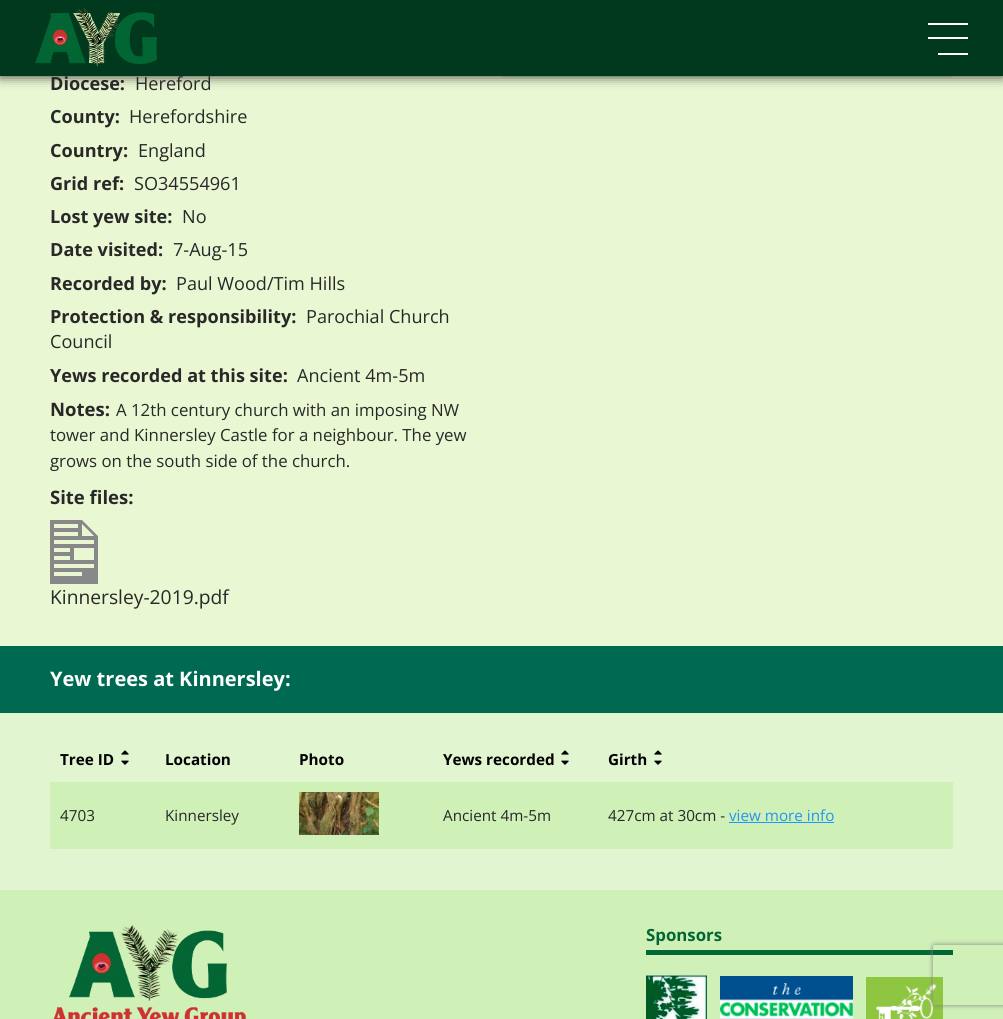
#include <cairo/cairo.h>
#include <math.h>
#include <stddef.h>

typedef struct { double x, y; const char *s; } line_t;
typedef struct { double x, y, w, h; unsigned color; } box_t;
static cairo_t *cr;

static void rgb(unsigned color)
{
	cairo_set_source_rgb(cr, (color >> 16) / 255.0, (color >> 8 & 255) / 255.0, (color & 255) / 255.0);
}

static void rrect(double x, double y, double w, double h, double r)
{
	cairo_new_sub_path(cr);
	cairo_arc(cr, x + w - r, y + h - r, r, 0, M_PI / 2);
	cairo_arc(cr, x + r, y + h - r, r, M_PI / 2, M_PI);
	cairo_arc(cr, x + r, y + r, r, M_PI, 1.5 * M_PI);
	cairo_arc(cr, x + w - r, y + r, r, 1.5 * M_PI, 2 * M_PI);
	cairo_close_path(cr);
}

static void soft_shadow(double x, double y, double w, double h, double r, double blur, double alpha)
{
	cairo_push_group_with_content(cr, CAIRO_CONTENT_ALPHA);
	cairo_set_operator(cr, CAIRO_OPERATOR_SOURCE);
	for (int i = 15; i >= -15 && fmin(w, h) + blur * i / 3 > 0; i -= 2) {
		double e = blur * i / 6;
		cairo_set_source_rgba(cr, 0, 0, 0, alpha * erfc((i - 1) / 8.5) / 2);
		rrect(x - e, y - e, w + 2 * e, h + 2 * e, fmax(0, fmin(r + e + blur * .6, fmin(w, h) / 2 + e)));
		cairo_fill(cr);
	}
	cairo_pattern_t *soft = cairo_pop_group(cr);
	cairo_mask(cr, soft);
	cairo_pattern_destroy(soft);
}

static void image(const char *path, double x, double y, double w, double h)
{
	cairo_surface_t *image = cairo_image_surface_create_from_png(path);
	cairo_save(cr);
	cairo_set_source_surface(cr, image, x, y);
	cairo_rectangle(cr, x, y, w, h);
	cairo_fill(cr);
	cairo_restore(cr);
	cairo_surface_destroy(image);
}

int main(void) {
	cairo_surface_t *surface = cairo_image_surface_create(CAIRO_FORMAT_RGB24, 1003, 1019);
	cr = cairo_create(surface);
	cairo_font_options_t *options = cairo_font_options_create();
	cairo_font_options_set_hint_metrics(options, CAIRO_HINT_METRICS_OFF);
	cairo_font_options_set_hint_style(options, CAIRO_HINT_STYLE_NONE);
	cairo_set_font_options(cr, options);
	cairo_set_miter_limit(cr, 4);
	rgb(0xe0f5d0);
	cairo_paint(cr);
	rgb(0xe9f7d3);
	cairo_rectangle(cr, 0, 76, 1003, 570);
	cairo_fill(cr);
	rgb(0xd3f1bd);
	cairo_rectangle(cr, 502, 76, 451, 2);
	cairo_fill(cr);
	rgb(0x000000);
	soft_shadow(0, 0, 1003, 76, 0, 6, 0.8);
	rgb(0x01391e);
	cairo_rectangle(cr, 0, 0, 1003, 76);
	cairo_fill(cr);
	image("img/1.png", 35, 8, 122, 58);
	{
		static const box_t items[] = {
			{928, 23, 40, 2, 0xffffff},
			{928, 37, 40, 2, 0xffffff},
			{938, 53, 30, 2, 0xffffff},
		};
		for (size_t i = 0; i < sizeof items / sizeof *items; i++) {
			rgb(items[i].color);
			cairo_rectangle(cr, items[i].x, items[i].y, items[i].w, items[i].h);
			cairo_fill(cr);
		}
	}
	image("img/2.png", 50, 520, 48, 64);
	rgb(0x006951);
	cairo_rectangle(cr, 0, 646, 1003, 67);
	cairo_fill(cr);
	image("img/3.png", 121, 750, 8, 5);
	image("img/4.png", 121, 760, 8, 5);
	image("img/3.png", 561, 750, 8, 5);
	image("img/4.png", 561, 760, 8, 5);
	image("img/3.png", 654, 750, 8, 5);
	image("img/4.png", 654, 760, 8, 5);
	rgb(0xcff0b7);
	cairo_rectangle(cr, 50, 782, 903, 67);
	cairo_fill(cr);
	image("img/5.png", 299, 792, 80, 43);
	rgb(0x2196f3);
	cairo_rectangle(cr, 729, 822, 105, 1);
	cairo_fill(cr);
	rgb(0xcff0b7);
	cairo_rectangle(cr, 0, 890, 1003, 129);
	cairo_fill(cr);
	image("img/6.png", 53, 925, 194, 94);
	rgb(0x026635);
	cairo_rectangle(cr, 646, 950, 307, 5);
	cairo_fill(cr);
	image("img/7.png", 646, 975, 61, 44);
	image("img/8.png", 720, 976, 133, 43);
	image("img/9.png", 866, 977, 77, 42);
	cairo_save(cr);
	cairo_set_fill_rule(cr, CAIRO_FILL_RULE_EVEN_ODD);
	cairo_new_path(cr);
	cairo_move_to(cr, 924, 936);
	cairo_line_to(cr, 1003, 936);
	cairo_line_to(cr, 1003, 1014);
	cairo_line_to(cr, 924, 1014);
	cairo_close_path(cr);
	cairo_move_to(cr, 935, 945);
	cairo_line_to(cr, 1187, 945);
	cairo_curve_to(cr, 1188, 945, 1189, 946, 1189, 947);
	cairo_line_to(cr, 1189, 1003);
	cairo_curve_to(cr, 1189, 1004, 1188, 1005, 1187, 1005);
	cairo_line_to(cr, 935, 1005);
	cairo_curve_to(cr, 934, 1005, 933, 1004, 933, 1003);
	cairo_line_to(cr, 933, 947);
	cairo_curve_to(cr, 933, 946, 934, 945, 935, 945);
	cairo_close_path(cr);
	cairo_clip(cr);
	rgb(0x808080);
	soft_shadow(933, 945, 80, 60, 2, 2.5, 1);
	cairo_restore(cr);
	cairo_select_font_face(cr, "Open Sans", CAIRO_FONT_SLANT_NORMAL, CAIRO_FONT_WEIGHT_BOLD);
	cairo_set_font_size(cr, 18.1);
	rgb(0x282828);
	cairo_move_to(cr, 50, 90);
	cairo_show_text(cr, "Diocese:");
	cairo_select_font_face(cr, "Open Sans", CAIRO_FONT_SLANT_NORMAL, CAIRO_FONT_WEIGHT_NORMAL);
	cairo_move_to(cr, 135, 90);
	cairo_show_text(cr, "Hereford");
	cairo_select_font_face(cr, "Open Sans", CAIRO_FONT_SLANT_NORMAL, CAIRO_FONT_WEIGHT_BOLD);
	cairo_move_to(cr, 50, 123);
	cairo_show_text(cr, "County:");
	cairo_select_font_face(cr, "Open Sans", CAIRO_FONT_SLANT_NORMAL, CAIRO_FONT_WEIGHT_NORMAL);
	cairo_move_to(cr, 129, 123);
	cairo_show_text(cr, "Herefordshire");
	cairo_select_font_face(cr, "Open Sans", CAIRO_FONT_SLANT_NORMAL, CAIRO_FONT_WEIGHT_BOLD);
	cairo_move_to(cr, 50, 157);
	cairo_show_text(cr, "Country:");
	cairo_select_font_face(cr, "Open Sans", CAIRO_FONT_SLANT_NORMAL, CAIRO_FONT_WEIGHT_NORMAL);
	cairo_move_to(cr, 138, 157);
	cairo_show_text(cr, "England");
	cairo_select_font_face(cr, "Open Sans", CAIRO_FONT_SLANT_NORMAL, CAIRO_FONT_WEIGHT_BOLD);
	cairo_move_to(cr, 50, 190);
	cairo_show_text(cr, "Grid ref:");
	cairo_select_font_face(cr, "Open Sans", CAIRO_FONT_SLANT_NORMAL, CAIRO_FONT_WEIGHT_NORMAL);
	cairo_move_to(cr, 134, 190);
	cairo_show_text(cr, "SO34554961");
	cairo_select_font_face(cr, "Open Sans", CAIRO_FONT_SLANT_NORMAL, CAIRO_FONT_WEIGHT_BOLD);
	cairo_move_to(cr, 50, 223);
	cairo_show_text(cr, "Lost yew site:");
	cairo_select_font_face(cr, "Open Sans", CAIRO_FONT_SLANT_NORMAL, CAIRO_FONT_WEIGHT_NORMAL);
	cairo_move_to(cr, 182, 223);
	cairo_show_text(cr, "No");
	cairo_select_font_face(cr, "Open Sans", CAIRO_FONT_SLANT_NORMAL, CAIRO_FONT_WEIGHT_BOLD);
	cairo_move_to(cr, 50, 256);
	cairo_show_text(cr, "Date visited:");
	cairo_select_font_face(cr, "Open Sans", CAIRO_FONT_SLANT_NORMAL, CAIRO_FONT_WEIGHT_NORMAL);
	cairo_move_to(cr, 173, 256);
	cairo_show_text(cr, "7-Aug-15");
	cairo_select_font_face(cr, "Open Sans", CAIRO_FONT_SLANT_NORMAL, CAIRO_FONT_WEIGHT_BOLD);
	cairo_move_to(cr, 50, 290);
	cairo_show_text(cr, "Recorded by:");
	cairo_select_font_face(cr, "Open Sans", CAIRO_FONT_SLANT_NORMAL, CAIRO_FONT_WEIGHT_NORMAL);
	cairo_move_to(cr, 176, 290);
	cairo_show_text(cr, "Paul Wood/Tim Hills");
	cairo_select_font_face(cr, "Open Sans", CAIRO_FONT_SLANT_NORMAL, CAIRO_FONT_WEIGHT_BOLD);
	cairo_move_to(cr, 50, 323);
	cairo_show_text(cr, "Protection & responsibility:");
	cairo_select_font_face(cr, "Open Sans", CAIRO_FONT_SLANT_NORMAL, CAIRO_FONT_WEIGHT_NORMAL);
	cairo_move_to(cr, 306, 323);
	cairo_show_text(cr, "Parochial Church");
	cairo_move_to(cr, 50, 348);
	cairo_show_text(cr, "Council");
	cairo_select_font_face(cr, "Open Sans", CAIRO_FONT_SLANT_NORMAL, CAIRO_FONT_WEIGHT_BOLD);
	cairo_move_to(cr, 50, 382);
	cairo_show_text(cr, "Yews recorded at this site:");
	cairo_select_font_face(cr, "Open Sans", CAIRO_FONT_SLANT_NORMAL, CAIRO_FONT_WEIGHT_NORMAL);
	cairo_move_to(cr, 297, 382);
	cairo_show_text(cr, "Ancient 4m-5m");
	cairo_select_font_face(cr, "Open Sans", CAIRO_FONT_SLANT_NORMAL, CAIRO_FONT_WEIGHT_BOLD);
	cairo_set_font_size(cr, 18.5);
	cairo_move_to(cr, 50, 416);
	cairo_show_text(cr, "Notes:");
	cairo_select_font_face(cr, "Open Sans", CAIRO_FONT_SLANT_NORMAL, CAIRO_FONT_WEIGHT_NORMAL);
	cairo_set_font_size(cr, 16.8);
	{
		static const line_t items[] = {
			{116, 416, "A 12th century church with an imposing NW"},
			{50, 441, "tower and Kinnersley Castle for a neighbour. The yew"},
			{50, 467, "grows on the south side of the church."},
		};
		for (size_t i = 0; i < sizeof items / sizeof *items; i++) {
			cairo_move_to(cr, items[i].x, items[i].y);
			cairo_show_text(cr, items[i].s);
		}
	}
	cairo_select_font_face(cr, "Open Sans", CAIRO_FONT_SLANT_NORMAL, CAIRO_FONT_WEIGHT_BOLD);
	cairo_set_font_size(cr, 18.5);
	cairo_move_to(cr, 50, 504);
	cairo_show_text(cr, "Site files:");
	cairo_select_font_face(cr, "Open Sans", CAIRO_FONT_SLANT_NORMAL, CAIRO_FONT_WEIGHT_NORMAL);
	cairo_set_font_size(cr, 19.25);
	cairo_move_to(cr, 50, 604);
	cairo_show_text(cr, "Kinnersley-2019.pdf");
	cairo_select_font_face(cr, "Open Sans", CAIRO_FONT_SLANT_NORMAL, CAIRO_FONT_WEIGHT_BOLD);
	cairo_set_font_size(cr, 20);
	rgb(0xffffff);
	cairo_move_to(cr, 50, 686);
	cairo_show_text(cr, "Yew trees at Kinnersley:");
	cairo_set_font_size(cr, 15.25);
	rgb(0x000000);
	{
		static const line_t items[] = {
			{60, 765, "Tree ID"},
			{165, 765, "Location"},
			{299, 765, "Photo"},
			{443, 765, "Yews recorded"},
			{608, 765, "Girth"},
		};
		for (size_t i = 0; i < sizeof items / sizeof *items; i++) {
			cairo_move_to(cr, items[i].x, items[i].y);
			cairo_show_text(cr, items[i].s);
		}
	}
	cairo_select_font_face(cr, "Open Sans", CAIRO_FONT_SLANT_NORMAL, CAIRO_FONT_WEIGHT_NORMAL);
	rgb(0x282828);
	{
		static const line_t items[] = {
			{60, 821, "4703"},
			{165, 821, "Kinnersley"},
			{443, 821, "Ancient 4m-5m"},
			{608, 821, "427cm at 30cm -"},
		};
		for (size_t i = 0; i < sizeof items / sizeof *items; i++) {
			cairo_move_to(cr, items[i].x, items[i].y);
			cairo_show_text(cr, items[i].s);
		}
	}
	rgb(0x2196f3);
	cairo_move_to(cr, 729, 821);
	cairo_show_text(cr, "view more info");
	cairo_select_font_face(cr, "Open Sans", CAIRO_FONT_SLANT_NORMAL, CAIRO_FONT_WEIGHT_BOLD);
	cairo_set_font_size(cr, 16.8);
	rgb(0x026635);
	cairo_move_to(cr, 646, 941);
	cairo_show_text(cr, "Sponsors");
	cairo_surface_write_to_png(surface, "page.png");
	cairo_font_options_destroy(options);
	cairo_destroy(cr);
	cairo_surface_destroy(surface);
	return 0;
}
